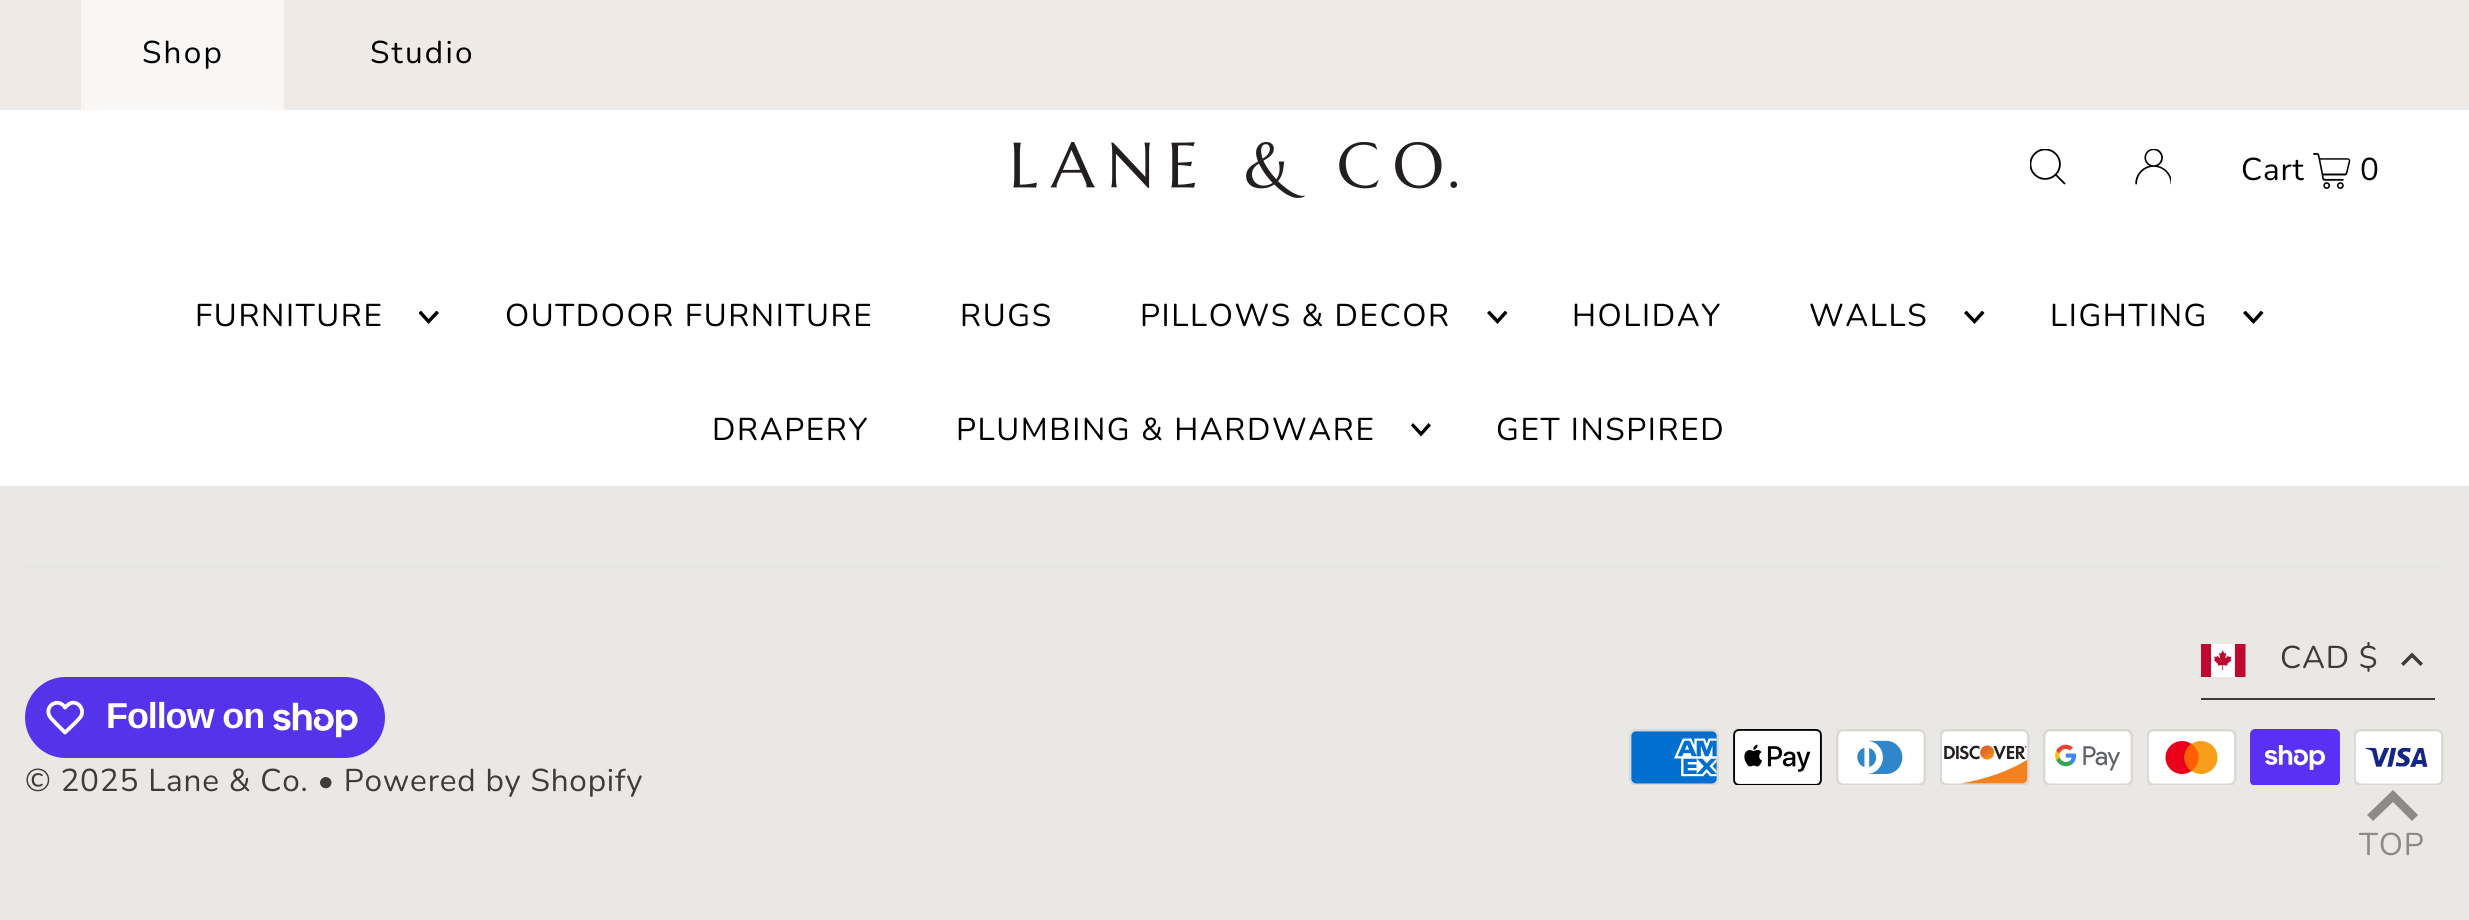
#include <cairo/cairo.h>
#include <math.h>
#include <stddef.h>

typedef struct { double x, y; const char *s; } line_t;
typedef struct { double x, y, w, h; unsigned color; } box_t;
static cairo_t *cr;

static void rgb(unsigned color)
{
	cairo_set_source_rgb(cr, (color >> 16) / 255.0, (color >> 8 & 255) / 255.0, (color & 255) / 255.0);
}

static void tracked(double x, double y, const char *s, double letter, double word)
{
	cairo_move_to(cr, x, y);
	while (*s) {
		char ch[5] = {0};
		int n = 0;
		do ch[n++] = *s++; while ((*s & 0xC0) == 0x80);
		cairo_show_text(cr, ch);
		cairo_rel_move_to(cr, letter + word * (*ch == ' '), 0);
	}
}

static void rrect(double x, double y, double w, double h, double r)
{
	cairo_new_sub_path(cr);
	cairo_arc(cr, x + w - r, y + h - r, r, 0, M_PI / 2);
	cairo_arc(cr, x + r, y + h - r, r, M_PI / 2, M_PI);
	cairo_arc(cr, x + r, y + r, r, M_PI, 1.5 * M_PI);
	cairo_arc(cr, x + w - r, y + r, r, 1.5 * M_PI, 2 * M_PI);
	cairo_close_path(cr);
}

static void image(const char *path, double x, double y, double w, double h)
{
	cairo_surface_t *image = cairo_image_surface_create_from_png(path);
	cairo_save(cr);
	cairo_set_source_surface(cr, image, x, y);
	cairo_rectangle(cr, x, y, w, h);
	cairo_fill(cr);
	cairo_restore(cr);
	cairo_surface_destroy(image);
}

int main(void) {
	cairo_surface_t *surface = cairo_image_surface_create(CAIRO_FORMAT_RGB24, 2469, 920);
	cr = cairo_create(surface);
	cairo_font_options_t *options = cairo_font_options_create();
	cairo_font_options_set_hint_metrics(options, CAIRO_HINT_METRICS_OFF);
	cairo_font_options_set_hint_style(options, CAIRO_HINT_STYLE_NONE);
	cairo_set_font_options(cr, options);
	cairo_set_miter_limit(cr, 4);
	rgb(0xeae8e4);
	cairo_paint(cr);
	{
		static const box_t items[] = {
			{0, 110, 2469, 376, 0xffffff},
			{0, 0, 2469, 110, 0xefeae5},
			{81, 0, 203, 110, 0xf9f7f5},
		};
		for (size_t i = 0; i < sizeof items / sizeof *items; i++) {
			rgb(items[i].color);
			cairo_rectangle(cr, items[i].x, items[i].y, items[i].w, items[i].h);
			cairo_fill(cr);
		}
	}
	image("img/1.png", 1013, 142, 445, 56);
	image("img/2.png", 2030, 149, 36, 36);
	image("img/3.png", 2135, 149, 36, 36);
	image("img/4.png", 2313, 153, 38, 36);
	cairo_save(cr);
	cairo_rectangle(cr, 419, 311, 20, 13);
	cairo_clip(cr);
	rgb(0x000000);
	cairo_new_path(cr);
	cairo_move_to(cr, 436.5, 310.5);
	cairo_line_to(cr, 428.5, 319);
	cairo_line_to(cr, 421, 310.5);
	cairo_line_to(cr, 418.5, 313);
	cairo_line_to(cr, 428.5, 324);
	cairo_line_to(cr, 439, 313);
	cairo_close_path(cr);
	cairo_fill(cr);
	cairo_restore(cr);
	cairo_save(cr);
	cairo_rectangle(cr, 1487, 311, 21, 13);
	cairo_clip(cr);
	rgb(0x000000);
	cairo_new_path(cr);
	cairo_move_to(cr, 1505, 310.5);
	cairo_line_to(cr, 1497.5, 319);
	cairo_line_to(cr, 1489.5, 310.5);
	cairo_line_to(cr, 1487, 313);
	cairo_line_to(cr, 1497.5, 324);
	cairo_line_to(cr, 1507.5, 313);
	cairo_close_path(cr);
	cairo_fill(cr);
	cairo_restore(cr);
	cairo_save(cr);
	cairo_rectangle(cr, 1964, 311, 21, 13);
	cairo_clip(cr);
	rgb(0x000000);
	cairo_new_path(cr);
	cairo_move_to(cr, 1982, 310.5);
	cairo_line_to(cr, 1974.5, 319);
	cairo_line_to(cr, 1966.5, 310.5);
	cairo_line_to(cr, 1964, 313);
	cairo_line_to(cr, 1974.5, 324);
	cairo_line_to(cr, 1984.5, 313);
	cairo_close_path(cr);
	cairo_fill(cr);
	cairo_restore(cr);
	cairo_save(cr);
	cairo_rectangle(cr, 2243, 311, 21, 13);
	cairo_clip(cr);
	rgb(0x000000);
	cairo_new_path(cr);
	cairo_move_to(cr, 2261, 310.5);
	cairo_line_to(cr, 2253.5, 319);
	cairo_line_to(cr, 2245.5, 310.5);
	cairo_line_to(cr, 2243, 313);
	cairo_line_to(cr, 2253.5, 324);
	cairo_line_to(cr, 2263.5, 313);
	cairo_close_path(cr);
	cairo_fill(cr);
	cairo_restore(cr);
	rgb(0x000000);
	cairo_new_path(cr);
	cairo_move_to(cr, 1428.5, 423);
	cairo_line_to(cr, 1421, 431.5);
	cairo_line_to(cr, 1413, 423);
	cairo_line_to(cr, 1411, 425.5);
	cairo_line_to(cr, 1421, 436.5);
	cairo_line_to(cr, 1431, 425.5);
	cairo_close_path(cr);
	cairo_fill(cr);
	rgb(0xe5e5e5);
	cairo_rectangle(cr, 25, 565, 2421, 2);
	cairo_fill(cr);
	rgb(0x3d3c3a);
	cairo_rectangle(cr, 2201, 698, 234, 2);
	cairo_fill(cr);
	image("img/5.png", 2201, 644, 45, 33);
	cairo_new_path(cr);
	cairo_move_to(cr, 2412, 652.5);
	cairo_line_to(cr, 2401, 663.5);
	cairo_line_to(cr, 2403.5, 666);
	cairo_line_to(cr, 2412, 657.5);
	cairo_line_to(cr, 2420.5, 666);
	cairo_line_to(cr, 2423, 663.5);
	cairo_close_path(cr);
	cairo_fill(cr);
	image("img/6.png", 1629, 729, 90, 56);
	image("img/7.png", 1733, 729, 89, 56);
	image("img/8.png", 1836, 729, 90, 56);
	image("img/9.png", 1940, 729, 90, 56);
	image("img/10.png", 2043, 729, 90, 56);
	image("img/11.png", 2147, 729, 90, 56);
	image("img/12.png", 2250, 729, 90, 56);
	image("img/13.png", 2354, 729, 90, 56);
	rgb(0x5433eb);
	rrect(25, 677, 360, 81, 40.5);
	cairo_fill(cr);
	cairo_new_path(cr);
	cairo_move_to(cr, 63.5, 705.5);
	cairo_line_to(cr, 65, 707.5);
	cairo_curve_to(cr, 67, 705.5, 68.5, 704, 71, 703);
	cairo_curve_to(cr, 77.5, 701, 84, 708, 81.5, 715);
	cairo_curve_to(cr, 80.5, 718, 77, 720.5, 75, 723);
	cairo_line_to(cr, 65, 732.5);
	cairo_line_to(cr, 55.5, 723);
	cairo_curve_to(cr, 53.5, 720.5, 50.5, 718.5, 49, 715);
	cairo_curve_to(cr, 45.5, 706, 56.5, 698.5, 63.5, 705.5);
	cairo_close_path(cr);
	rgb(0xffffff);
	cairo_set_line_width(cr, 3.8);
	cairo_set_line_join(cr, CAIRO_LINE_JOIN_ROUND);
	cairo_stroke(cr);
	image("img/14.png", 273, 702, 85, 36);
	rgb(0x8c8b89);
	cairo_new_path(cr);
	cairo_move_to(cr, 2393, 790);
	cairo_line_to(cr, 2367, 815);
	cairo_line_to(cr, 2373, 821);
	cairo_line_to(cr, 2393, 802);
	cairo_line_to(cr, 2412, 821);
	cairo_line_to(cr, 2418, 815);
	cairo_close_path(cr);
	cairo_fill(cr);
	cairo_select_font_face(cr, "Nunito", CAIRO_FONT_SLANT_NORMAL, CAIRO_FONT_WEIGHT_NORMAL);
	cairo_set_font_size(cr, 31.5);
	rgb(0x000000);
	tracked(142, 63, "Shop", 2.25, 0);
	tracked(370, 63, "Studio", 2.25, 0);
	tracked(2241, 180, "Cart", 0.8, 0);
	tracked(2360, 180, "0", 0.8, 0);
	{
		static const line_t items[] = {
			{195, 326, "FURNITURE"},
			{505, 326, "OUTDOOR FURNITURE"},
			{960, 326, "RUGS"},
			{1140, 326, "PILLOWS & DECOR"},
			{1572, 326, "HOLIDAY"},
			{1809, 326, "WALLS"},
			{2050, 326, "LIGHTING"},
			{712, 440, "DRAPERY"},
			{956, 440, "PLUMBING & HARDWARE"},
			{1496, 440, "GET INSPIRED"},
		};
		for (size_t i = 0; i < sizeof items / sizeof *items; i++) {
			tracked(items[i].x, items[i].y, items[i].s, 1.6, 0);
		}
	}
	rgb(0x3d3c3a);
	tracked(2280, 668, "CAD $", 0.8, 0);
	cairo_select_font_face(cr, "Liberation Sans", CAIRO_FONT_SLANT_NORMAL, CAIRO_FONT_WEIGHT_BOLD);
	cairo_set_font_size(cr, 36);
	rgb(0xffffff);
	tracked(106, 728, "Follow on", -1.1, 0);
	cairo_select_font_face(cr, "Nunito", CAIRO_FONT_SLANT_NORMAL, CAIRO_FONT_WEIGHT_NORMAL);
	cairo_set_font_size(cr, 31.5);
	rgb(0x3d3c3a);
	tracked(25, 791, "© 2025 Lane & Co. • Powered by Shopify", 0.8, 0);
	rgb(0x8c8b89);
	tracked(2359, 855, "TOP", 0.8, 0);
	cairo_surface_write_to_png(surface, "page.png");
	cairo_font_options_destroy(options);
	cairo_destroy(cr);
	cairo_surface_destroy(surface);
	return 0;
}
